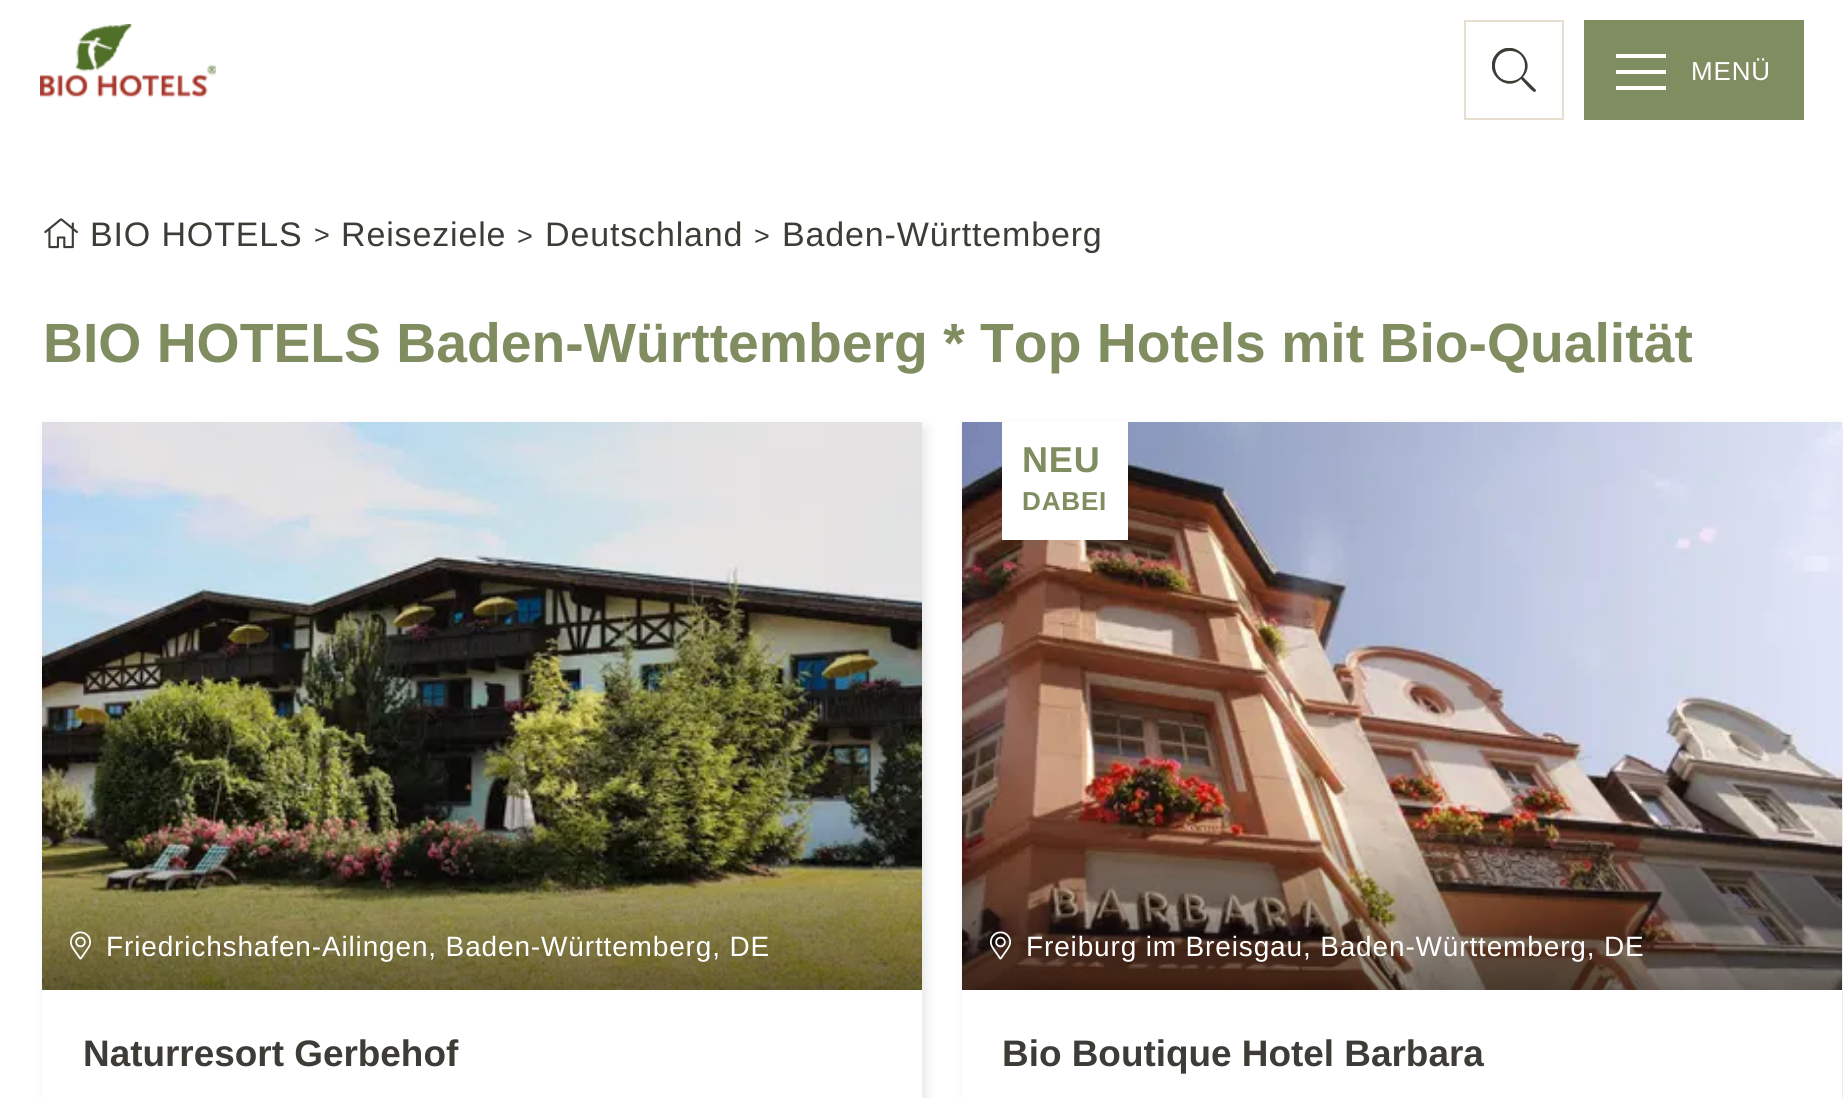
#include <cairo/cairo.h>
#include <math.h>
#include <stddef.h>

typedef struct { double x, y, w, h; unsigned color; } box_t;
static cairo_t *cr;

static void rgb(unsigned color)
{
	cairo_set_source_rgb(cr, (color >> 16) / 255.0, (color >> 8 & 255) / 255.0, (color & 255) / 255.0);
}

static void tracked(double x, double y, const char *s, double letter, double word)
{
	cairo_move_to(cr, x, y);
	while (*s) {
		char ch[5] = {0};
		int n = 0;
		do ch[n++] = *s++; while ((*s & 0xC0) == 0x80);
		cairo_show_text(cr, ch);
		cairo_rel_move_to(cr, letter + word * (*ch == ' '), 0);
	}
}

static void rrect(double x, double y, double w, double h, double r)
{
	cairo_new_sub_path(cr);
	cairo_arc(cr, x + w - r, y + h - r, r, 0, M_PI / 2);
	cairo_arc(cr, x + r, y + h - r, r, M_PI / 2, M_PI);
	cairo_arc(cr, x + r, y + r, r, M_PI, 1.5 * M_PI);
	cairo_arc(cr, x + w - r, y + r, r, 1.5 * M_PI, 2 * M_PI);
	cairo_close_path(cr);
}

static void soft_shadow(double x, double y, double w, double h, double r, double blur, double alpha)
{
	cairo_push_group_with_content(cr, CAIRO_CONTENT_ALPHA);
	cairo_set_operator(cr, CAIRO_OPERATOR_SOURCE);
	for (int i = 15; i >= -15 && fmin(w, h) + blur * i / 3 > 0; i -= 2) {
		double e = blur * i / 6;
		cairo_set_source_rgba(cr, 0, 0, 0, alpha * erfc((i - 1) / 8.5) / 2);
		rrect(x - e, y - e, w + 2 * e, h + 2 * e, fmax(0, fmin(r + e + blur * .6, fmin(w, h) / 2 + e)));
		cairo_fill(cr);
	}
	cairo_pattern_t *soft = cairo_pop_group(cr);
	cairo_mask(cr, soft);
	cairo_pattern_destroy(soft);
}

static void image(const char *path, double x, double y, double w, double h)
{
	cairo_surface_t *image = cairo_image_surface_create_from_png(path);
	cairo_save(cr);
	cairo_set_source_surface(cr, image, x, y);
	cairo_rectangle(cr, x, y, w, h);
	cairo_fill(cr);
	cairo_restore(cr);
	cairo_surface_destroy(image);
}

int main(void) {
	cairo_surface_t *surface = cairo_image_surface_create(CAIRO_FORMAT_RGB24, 1843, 1098);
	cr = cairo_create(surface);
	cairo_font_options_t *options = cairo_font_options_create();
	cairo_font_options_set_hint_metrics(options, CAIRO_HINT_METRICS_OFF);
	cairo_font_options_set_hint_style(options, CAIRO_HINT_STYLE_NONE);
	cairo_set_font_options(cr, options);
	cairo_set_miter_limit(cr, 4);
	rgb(0xffffff);
	cairo_paint(cr);
	image("img/1.png", 40, 24, 176, 74);
	cairo_rectangle(cr, 1465, 21, 98, 98);
	rgb(0xe6ded0);
	cairo_stroke(cr);
	cairo_save(cr);
	cairo_rectangle(cr, 1492, 48, 44, 44);
	cairo_clip(cr);
	rgb(0x3e3c36);
	cairo_new_path(cr);
	cairo_move_to(cr, 1536, 90);
	cairo_line_to(cr, 1523, 77);
	cairo_curve_to(cr, 1538, 61, 1513, 37, 1497, 53);
	cairo_curve_to(cr, 1481, 70, 1505, 94, 1521, 79);
	cairo_curve_to(cr, 1523, 81, 1533, 93, 1535, 92);
	cairo_curve_to(cr, 1536, 91, 1536, 90, 1536, 90);
	cairo_close_path(cr);
	cairo_move_to(cr, 1510, 81);
	cairo_curve_to(cr, 1490, 81, 1490, 51, 1510, 51);
	cairo_curve_to(cr, 1530, 51, 1530, 81, 1510, 81);
	cairo_close_path(cr);
	cairo_fill(cr);
	cairo_restore(cr);
	{
		static const box_t items[] = {
			{1584, 20, 220, 100, 0x7f8d60},
			{1616, 54, 50, 4, 0xffffff},
			{1616, 70, 50, 4, 0xffffff},
			{1616, 86, 50, 4, 0xffffff},
		};
		for (size_t i = 0; i < sizeof items / sizeof *items; i++) {
			rgb(items[i].color);
			cairo_rectangle(cr, items[i].x, items[i].y, items[i].w, items[i].h);
			cairo_fill(cr);
		}
	}
	image("img/2.png", 44, 218, 35, 31);
	cairo_save(cr);
	cairo_set_fill_rule(cr, CAIRO_FILL_RULE_EVEN_ODD);
	cairo_new_path(cr);
	cairo_move_to(cr, 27, 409);
	cairo_line_to(cr, 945, 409);
	cairo_line_to(cr, 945, 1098);
	cairo_line_to(cr, 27, 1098);
	cairo_close_path(cr);
	cairo_move_to(cr, 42, 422);
	cairo_line_to(cr, 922, 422);
	cairo_line_to(cr, 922, 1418);
	cairo_line_to(cr, 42, 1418);
	cairo_close_path(cr);
	cairo_clip(cr);
	rgb(0x000000);
	soft_shadow(46, 428, 880, 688, 0, 6, 0.1);
	cairo_restore(cr);
	image("img/3.png", 42, 422, 880, 568);
	image("img/4.png", 70, 931, 21, 29);
	cairo_save(cr);
	cairo_set_fill_rule(cr, CAIRO_FILL_RULE_EVEN_ODD);
	cairo_new_path(cr);
	cairo_move_to(cr, 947, 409);
	cairo_line_to(cr, 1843, 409);
	cairo_line_to(cr, 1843, 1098);
	cairo_line_to(cr, 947, 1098);
	cairo_close_path(cr);
	cairo_move_to(cr, 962, 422);
	cairo_line_to(cr, 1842, 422);
	cairo_line_to(cr, 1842, 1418);
	cairo_line_to(cr, 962, 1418);
	cairo_close_path(cr);
	cairo_clip(cr);
	rgb(0x000000);
	soft_shadow(966, 428, 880, 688, 0, 6, 0.1);
	cairo_restore(cr);
	image("img/5.png", 962, 422, 880, 568);
	cairo_rectangle(cr, 1002, 422, 126, 118);
	cairo_fill(cr);
	image("img/6.png", 990, 931, 21, 29);
	cairo_select_font_face(cr, "Liberation Sans", CAIRO_FONT_SLANT_NORMAL, CAIRO_FONT_WEIGHT_NORMAL);
	cairo_set_font_size(cr, 26);
	tracked(1691, 80, "MENÜ", 0.85, 0);
	cairo_set_font_size(cr, 34);
	rgb(0x3e3c36);
	tracked(90, 246, "BIO HOTELS", 0.85, 0);
	cairo_set_font_size(cr, 27);
	tracked(314, 244, ">", 0.85, 0);
	cairo_set_font_size(cr, 34);
	tracked(341, 246, "Reiseziele", 0.85, 0);
	cairo_set_font_size(cr, 27);
	tracked(517, 245, ">", 0.85, 0);
	cairo_set_font_size(cr, 34);
	tracked(545, 246, "Deutschland", 0.85, 0);
	cairo_set_font_size(cr, 27);
	tracked(754, 245, ">", 0.85, 0);
	cairo_set_font_size(cr, 34);
	tracked(782, 246, "Baden-Württemberg", 0.85, 0);
	cairo_select_font_face(cr, "Liberation Sans", CAIRO_FONT_SLANT_NORMAL, CAIRO_FONT_WEIGHT_BOLD);
	cairo_set_font_size(cr, 55.3);
	rgb(0x7f8d60);
	cairo_move_to(cr, 43, 362);
	cairo_show_text(cr, "BIO HOTELS Baden-Württemberg * Top Hotels mit Bio-Qualität");
	cairo_select_font_face(cr, "Liberation Sans", CAIRO_FONT_SLANT_NORMAL, CAIRO_FONT_WEIGHT_NORMAL);
	cairo_set_font_size(cr, 28);
	rgb(0xffffff);
	tracked(106, 956, "Friedrichshafen-Ailingen, Baden-Württemberg, DE", 0.85, 0);
	cairo_select_font_face(cr, "Liberation Sans", CAIRO_FONT_SLANT_NORMAL, CAIRO_FONT_WEIGHT_BOLD);
	cairo_set_font_size(cr, 36.9);
	rgb(0x3e3c36);
	cairo_move_to(cr, 83, 1066);
	cairo_show_text(cr, "Naturresort Gerbehof");
	cairo_set_font_size(cr, 36);
	rgb(0x7f8d60);
	tracked(1022, 472, "NEU", 0.85, 0);
	cairo_set_font_size(cr, 26);
	tracked(1022, 510, "DABEI", 0.85, 0);
	cairo_select_font_face(cr, "Liberation Sans", CAIRO_FONT_SLANT_NORMAL, CAIRO_FONT_WEIGHT_NORMAL);
	cairo_set_font_size(cr, 28);
	rgb(0xffffff);
	tracked(1026, 956, "Freiburg im Breisgau, Baden-Württemberg, DE", 0.85, 0);
	cairo_select_font_face(cr, "Liberation Sans", CAIRO_FONT_SLANT_NORMAL, CAIRO_FONT_WEIGHT_BOLD);
	cairo_set_font_size(cr, 36.9);
	rgb(0x3e3c36);
	cairo_move_to(cr, 1002, 1066);
	cairo_show_text(cr, "Bio Boutique Hotel Barbara");
	cairo_surface_write_to_png(surface, "page.png");
	cairo_font_options_destroy(options);
	cairo_destroy(cr);
	cairo_surface_destroy(surface);
	return 0;
}
